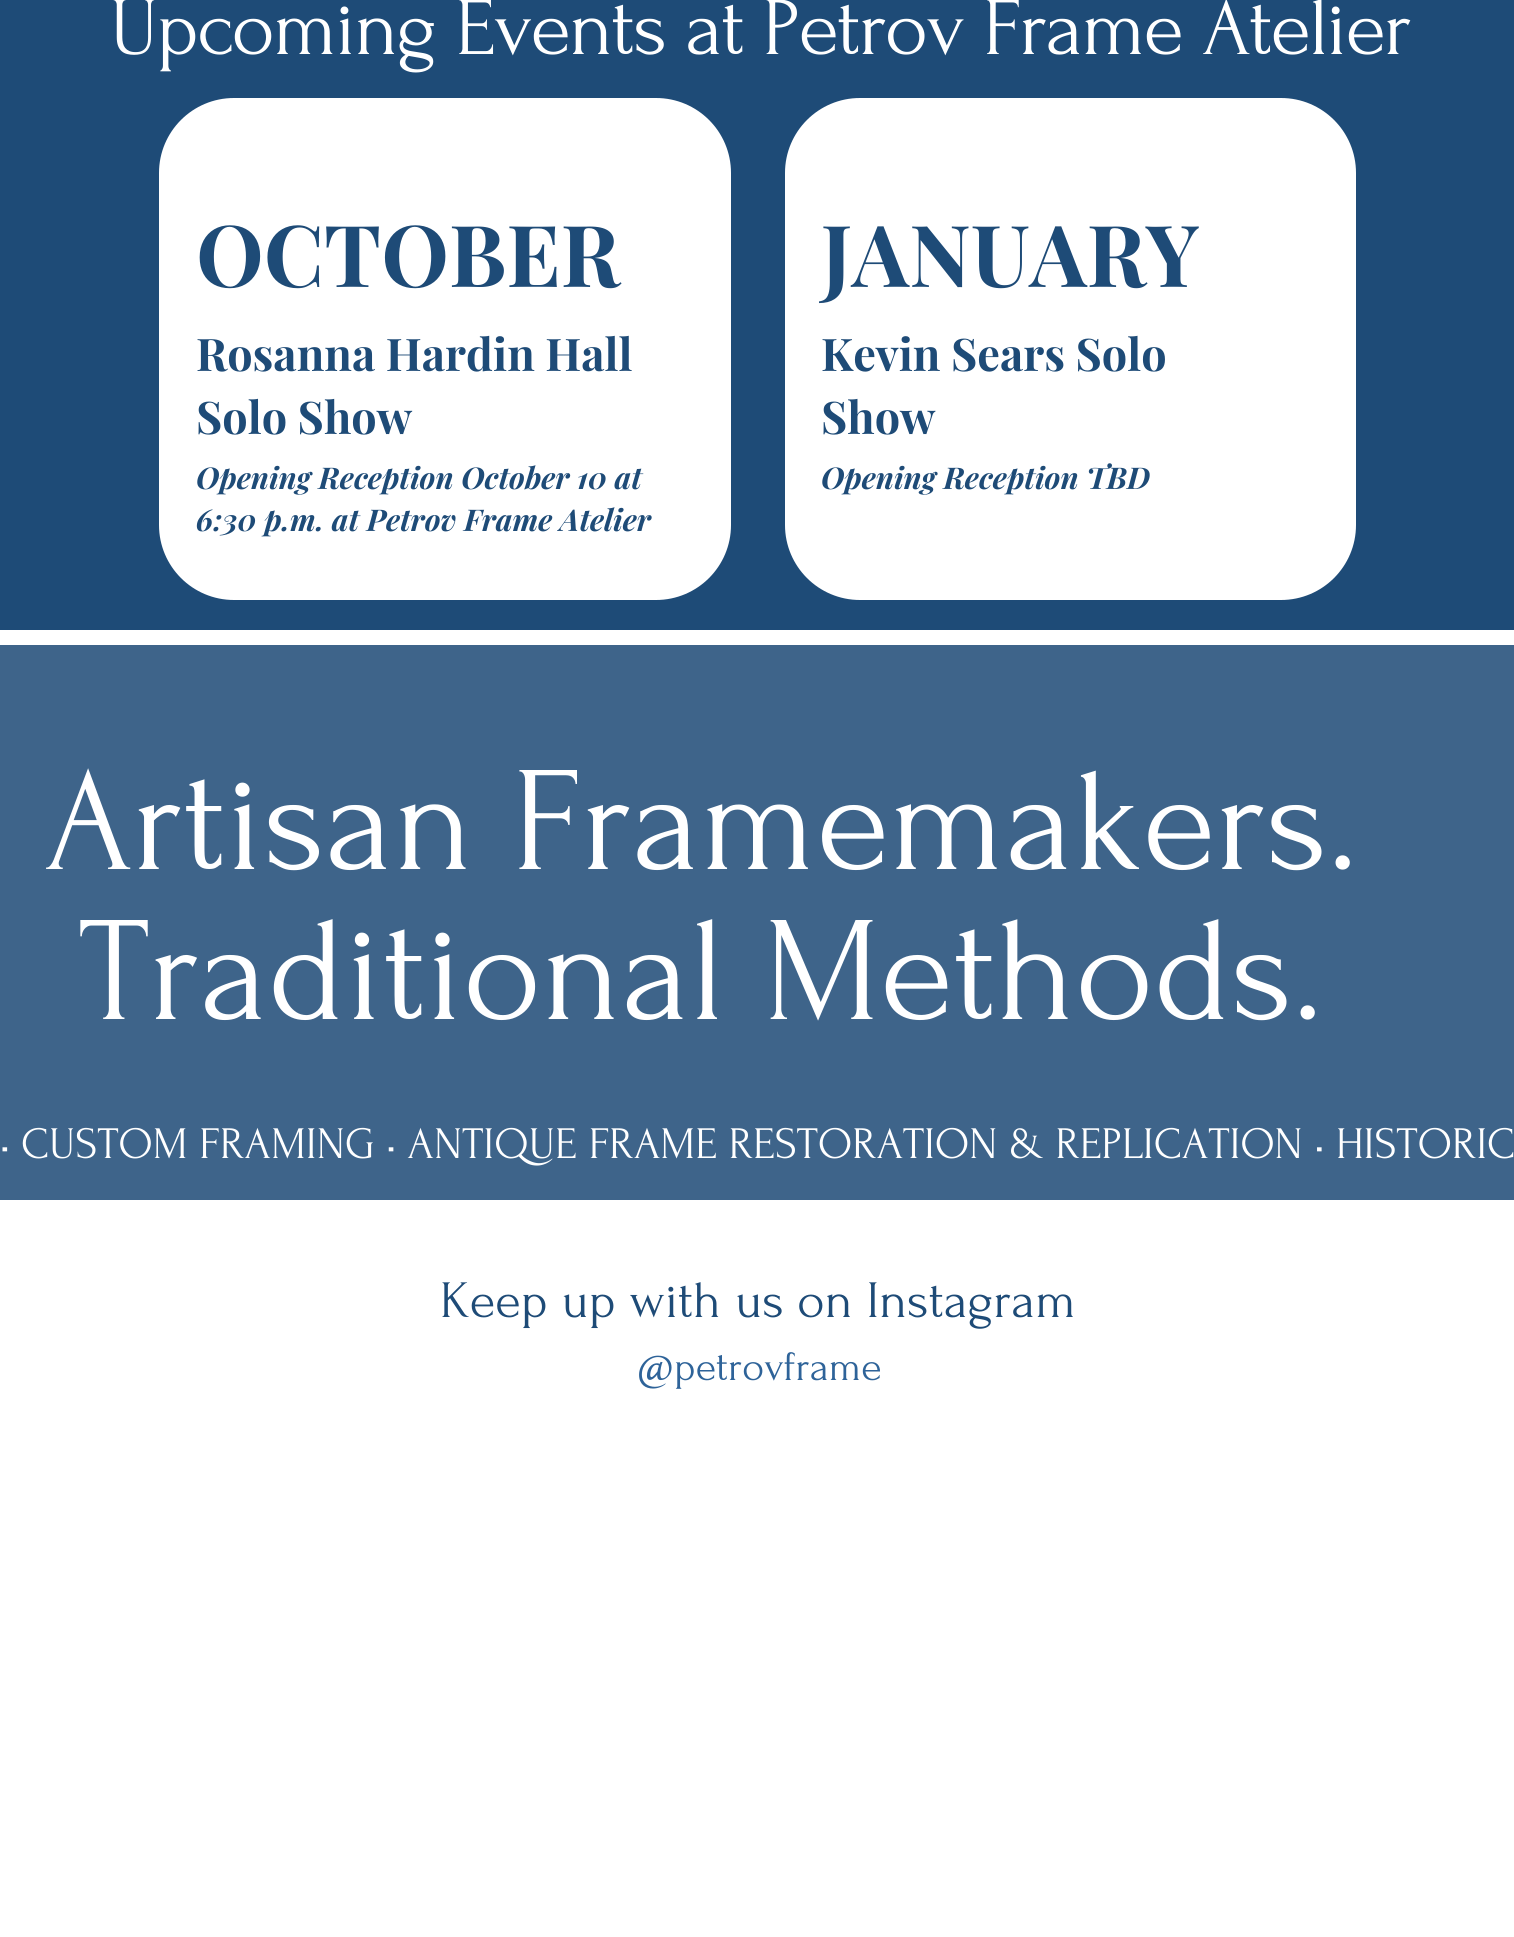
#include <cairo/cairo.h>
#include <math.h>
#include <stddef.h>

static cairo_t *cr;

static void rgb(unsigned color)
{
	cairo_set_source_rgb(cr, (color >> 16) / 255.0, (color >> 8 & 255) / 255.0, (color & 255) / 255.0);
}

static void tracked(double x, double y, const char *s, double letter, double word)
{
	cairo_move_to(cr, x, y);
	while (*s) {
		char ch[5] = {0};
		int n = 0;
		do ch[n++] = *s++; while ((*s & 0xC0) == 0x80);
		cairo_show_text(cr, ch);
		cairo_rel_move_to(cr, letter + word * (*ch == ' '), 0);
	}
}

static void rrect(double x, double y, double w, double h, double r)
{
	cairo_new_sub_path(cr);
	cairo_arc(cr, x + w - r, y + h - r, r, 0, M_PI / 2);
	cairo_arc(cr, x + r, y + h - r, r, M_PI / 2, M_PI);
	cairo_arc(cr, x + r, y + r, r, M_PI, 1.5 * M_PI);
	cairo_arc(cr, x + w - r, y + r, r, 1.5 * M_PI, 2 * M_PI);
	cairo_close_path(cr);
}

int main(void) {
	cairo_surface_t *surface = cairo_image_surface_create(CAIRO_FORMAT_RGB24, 1514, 1937);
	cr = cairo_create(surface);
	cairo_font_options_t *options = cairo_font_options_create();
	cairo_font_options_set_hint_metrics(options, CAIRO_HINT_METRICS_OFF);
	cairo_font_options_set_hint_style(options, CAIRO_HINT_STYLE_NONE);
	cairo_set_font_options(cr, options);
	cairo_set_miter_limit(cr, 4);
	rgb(0xffffff);
	cairo_paint(cr);
	rgb(0x1e4b77);
	cairo_rectangle(cr, 0, 0, 1514, 630);
	cairo_fill(cr);
	rgb(0xffffff);
	rrect(159, 98, 572, 502, 75);
	cairo_fill(cr);
	rrect(785, 98, 571, 502, 75);
	cairo_fill(cr);
	rgb(0x3e648a);
	cairo_rectangle(cr, 0, 645, 1514, 555);
	cairo_fill(cr);
	cairo_select_font_face(cr, "Forum", CAIRO_FONT_SLANT_NORMAL, CAIRO_FONT_WEIGHT_NORMAL);
	cairo_set_font_size(cr, 82.5);
	rgb(0xffffff);
	tracked(110, 54, "Upcoming Events at Petrov Frame Atelier", -1.65, 0);
	cairo_select_font_face(cr, "Playfair Display", CAIRO_FONT_SLANT_NORMAL, CAIRO_FONT_WEIGHT_BOLD);
	cairo_set_font_size(cr, 85.5);
	rgb(0x1e4b77);
	cairo_move_to(cr, 196, 287);
	cairo_show_text(cr, "OCTOBER");
	cairo_set_font_size(cr, 45);
	cairo_move_to(cr, 196, 371);
	cairo_show_text(cr, "Rosanna Hardin Hall");
	cairo_move_to(cr, 196, 434);
	cairo_show_text(cr, "Solo Show");
	cairo_select_font_face(cr, "Playfair Display", CAIRO_FONT_SLANT_ITALIC, CAIRO_FONT_WEIGHT_BOLD);
	cairo_set_font_size(cr, 30);
	cairo_move_to(cr, 196, 489);
	cairo_show_text(cr, "Opening Reception October 10 at");
	cairo_move_to(cr, 196, 531);
	cairo_show_text(cr, "6:30 p.m. at Petrov Frame Atelier");
	cairo_select_font_face(cr, "Playfair Display", CAIRO_FONT_SLANT_NORMAL, CAIRO_FONT_WEIGHT_BOLD);
	cairo_set_font_size(cr, 85.5);
	cairo_move_to(cr, 821, 287);
	cairo_show_text(cr, "JANUARY");
	cairo_set_font_size(cr, 45);
	cairo_move_to(cr, 821, 371);
	cairo_show_text(cr, "Kevin Sears Solo");
	cairo_move_to(cr, 821, 434);
	cairo_show_text(cr, "Show");
	cairo_select_font_face(cr, "Playfair Display", CAIRO_FONT_SLANT_ITALIC, CAIRO_FONT_WEIGHT_BOLD);
	cairo_set_font_size(cr, 30);
	cairo_move_to(cr, 821, 489);
	cairo_show_text(cr, "Opening Reception TBD");
	cairo_select_font_face(cr, "Forum", CAIRO_FONT_SLANT_NORMAL, CAIRO_FONT_WEIGHT_NORMAL);
	cairo_set_font_size(cr, 150);
	rgb(0xffffff);
	cairo_move_to(cr, 44, 869);
	cairo_show_text(cr, "Artisan Framemakers.");
	cairo_move_to(cr, 79, 1019);
	cairo_show_text(cr, "Traditional Methods.");
	cairo_set_font_size(cr, 45);
	cairo_move_to(cr, 0, 1158);
	cairo_show_text(cr, "• CUSTOM FRAMING • ANTIQUE FRAME RESTORATION & REPLICATION • HISTORIC");
	cairo_set_font_size(cr, 52.5);
	rgb(0x1e4b77);
	cairo_move_to(cr, 440, 1317);
	cairo_show_text(cr, "Keep up with us on Instagram");
	cairo_set_font_size(cr, 42);
	rgb(0x2e6399);
	cairo_move_to(cr, 637, 1380);
	cairo_show_text(cr, "@petrovframe");
	cairo_surface_write_to_png(surface, "page.png");
	cairo_font_options_destroy(options);
	cairo_destroy(cr);
	cairo_surface_destroy(surface);
	return 0;
}
